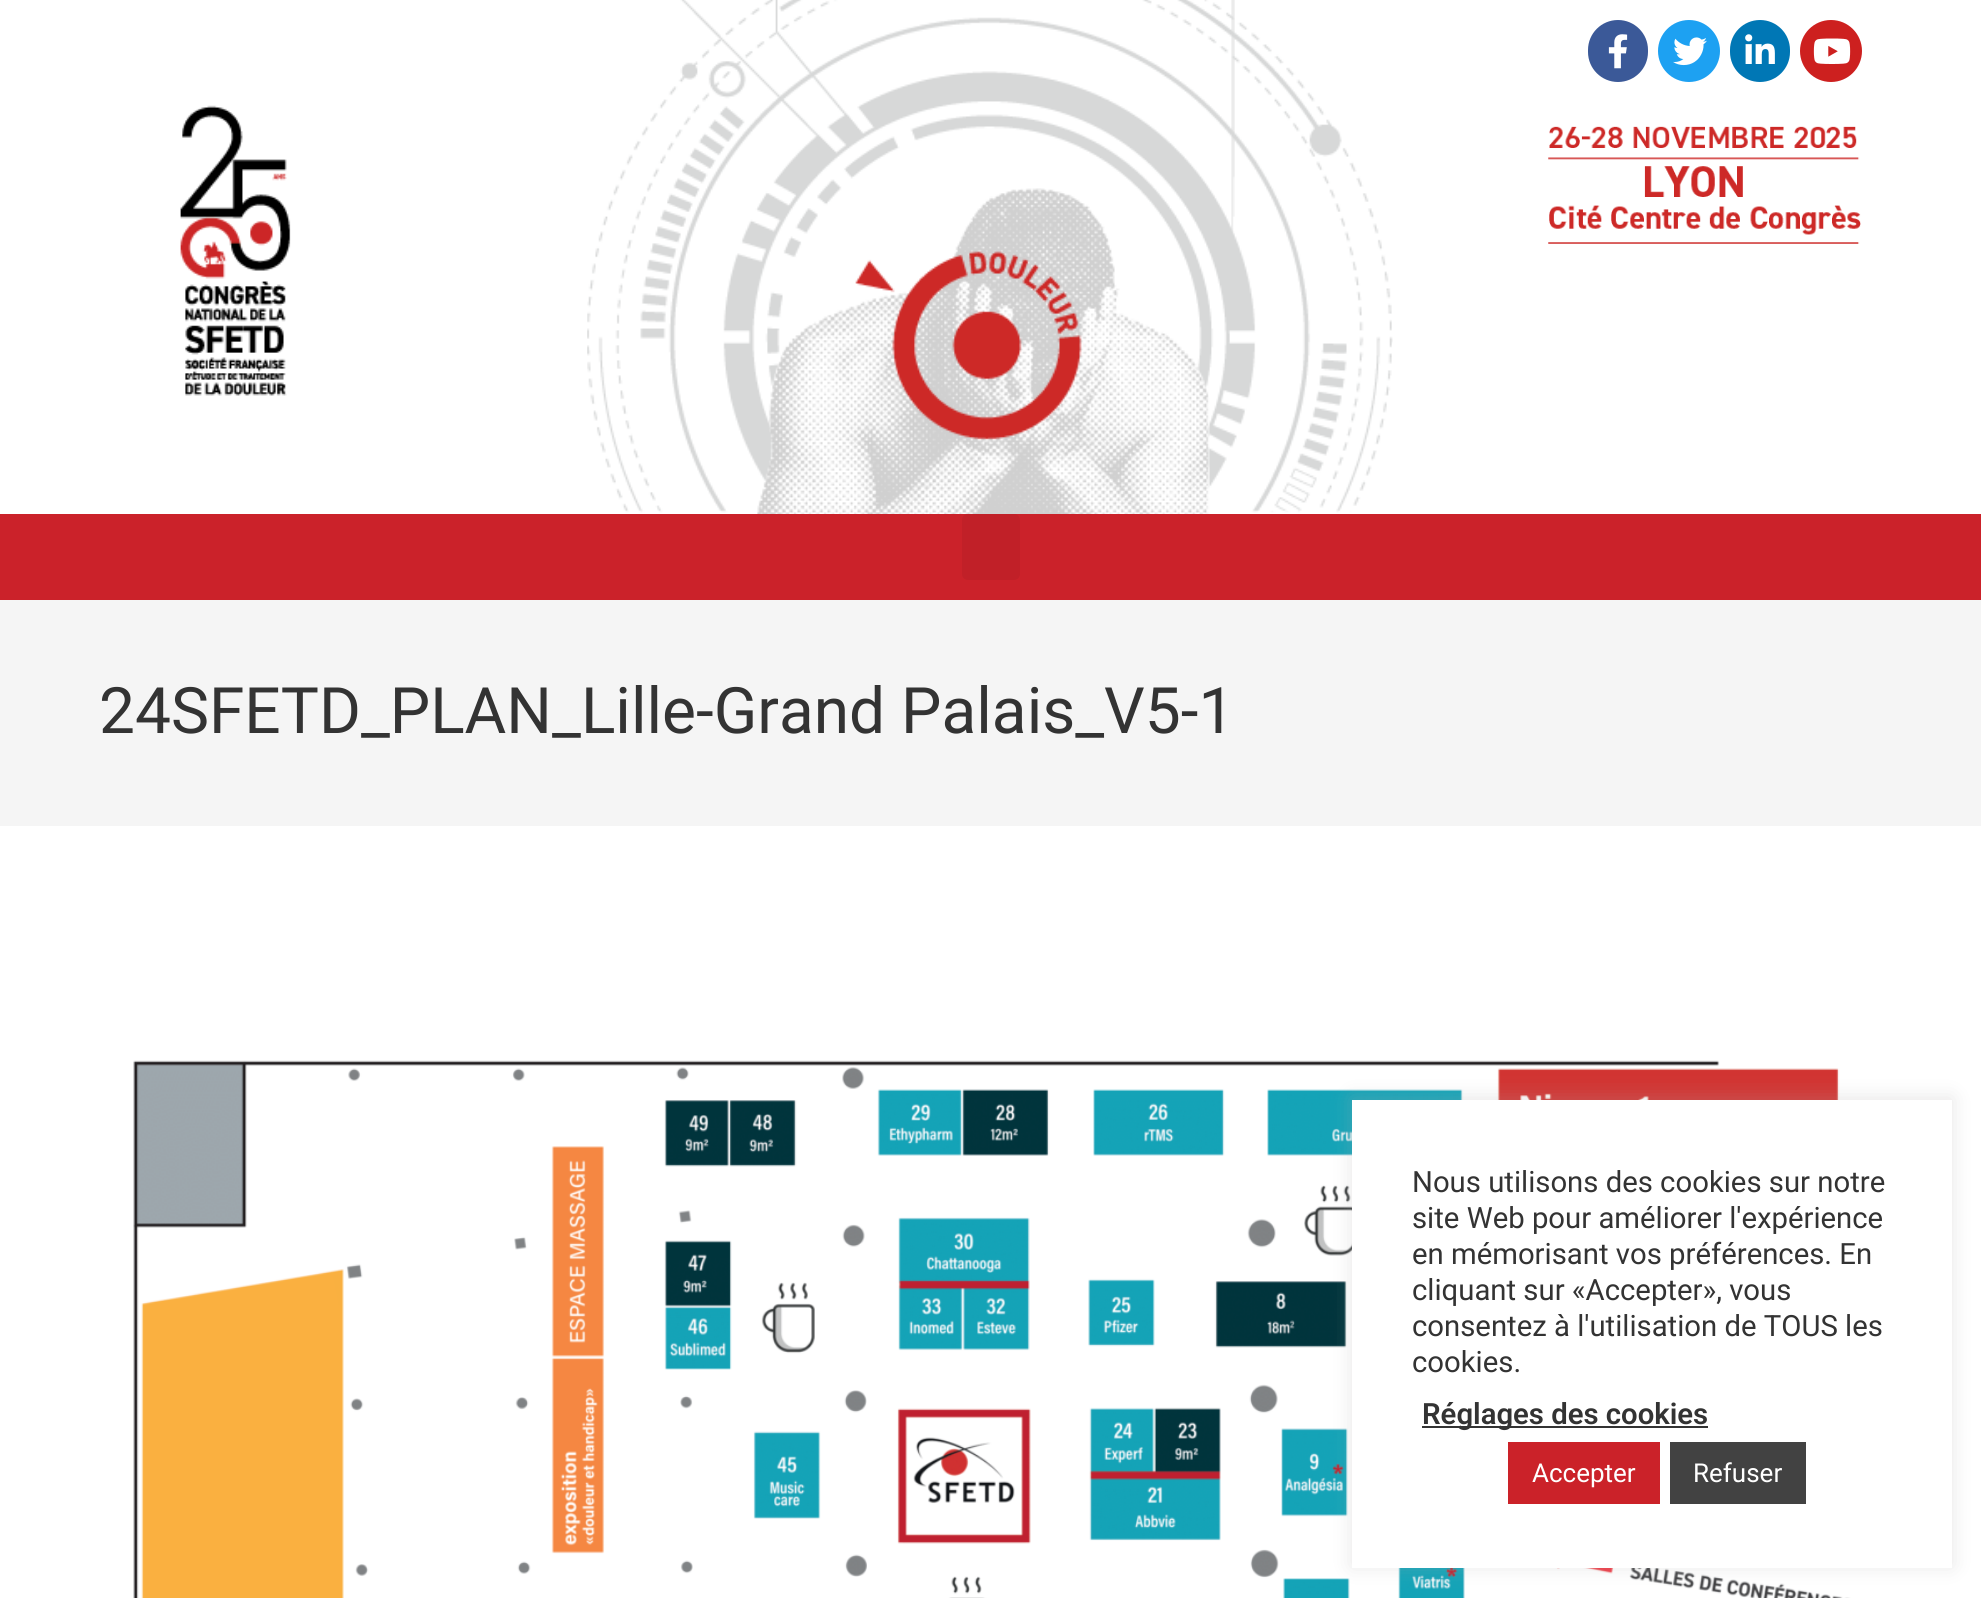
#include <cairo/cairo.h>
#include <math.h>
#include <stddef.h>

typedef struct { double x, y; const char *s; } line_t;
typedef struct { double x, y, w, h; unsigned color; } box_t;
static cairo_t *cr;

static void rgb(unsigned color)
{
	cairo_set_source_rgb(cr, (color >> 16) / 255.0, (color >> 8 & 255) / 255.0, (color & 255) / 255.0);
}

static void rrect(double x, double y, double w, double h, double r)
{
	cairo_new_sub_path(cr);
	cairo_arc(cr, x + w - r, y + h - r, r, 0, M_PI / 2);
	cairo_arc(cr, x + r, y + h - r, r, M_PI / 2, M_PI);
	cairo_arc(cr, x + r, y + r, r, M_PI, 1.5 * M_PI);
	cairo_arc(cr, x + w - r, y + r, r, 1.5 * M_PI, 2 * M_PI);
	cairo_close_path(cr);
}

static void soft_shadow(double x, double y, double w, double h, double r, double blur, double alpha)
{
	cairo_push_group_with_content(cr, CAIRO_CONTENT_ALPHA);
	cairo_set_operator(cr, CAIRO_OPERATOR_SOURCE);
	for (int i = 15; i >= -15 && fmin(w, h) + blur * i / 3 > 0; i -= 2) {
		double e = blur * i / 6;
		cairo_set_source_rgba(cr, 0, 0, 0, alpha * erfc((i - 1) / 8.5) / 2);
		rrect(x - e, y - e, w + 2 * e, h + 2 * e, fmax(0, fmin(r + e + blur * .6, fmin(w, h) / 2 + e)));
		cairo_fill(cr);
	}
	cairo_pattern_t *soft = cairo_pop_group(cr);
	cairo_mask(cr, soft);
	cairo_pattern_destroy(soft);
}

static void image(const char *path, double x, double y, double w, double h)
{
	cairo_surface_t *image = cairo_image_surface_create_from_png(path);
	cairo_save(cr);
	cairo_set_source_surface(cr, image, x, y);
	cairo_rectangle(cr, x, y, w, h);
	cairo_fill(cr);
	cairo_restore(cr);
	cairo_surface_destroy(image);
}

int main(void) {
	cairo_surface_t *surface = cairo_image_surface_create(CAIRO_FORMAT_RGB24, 1981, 1598);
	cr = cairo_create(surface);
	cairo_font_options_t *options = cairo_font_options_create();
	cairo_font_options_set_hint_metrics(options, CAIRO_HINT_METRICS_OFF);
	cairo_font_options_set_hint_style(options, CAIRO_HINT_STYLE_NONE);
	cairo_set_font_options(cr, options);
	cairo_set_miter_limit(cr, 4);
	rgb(0xffffff);
	cairo_paint(cr);
	image("img/1.png", 587, 0, 806, 514);
	image("img/2.png", 180, 105, 111, 291);
	rgb(0x3b5998);
	rrect(1588, 20, 60, 62, 30);
	cairo_fill(cr);
	image("img/3.png", 1608, 34, 20, 35);
	rgb(0x1da1f2);
	cairo_arc(cr, 1689, 51, 31, 0, 2 * M_PI);
	cairo_fill(cr);
	image("img/4.png", 1673, 37, 34, 29);
	rgb(0x0077b5);
	rrect(1730, 20, 60, 62, 30);
	cairo_fill(cr);
	image("img/5.png", 1745, 34, 30, 30);
	rgb(0xcd201f);
	cairo_arc(cr, 1831, 51, 31, 0, 2 * M_PI);
	cairo_fill(cr);
	image("img/6.png", 1813, 38, 38, 26);
	image("img/7.png", 1548, 126, 313, 118);
	rgb(0xcb222a);
	cairo_rectangle(cr, 0, 514, 1981, 86);
	cairo_fill(cr);
	rgb(0xc12028);
	rrect(962, 514, 58, 66, 6);
	cairo_fill(cr);
	rgb(0xf5f5f5);
	cairo_rectangle(cr, 0, 600, 1981, 226);
	cairo_fill(cr);
	image("img/8.png", 133, 1060, 1739, 538);
	rgb(0xacabab);
	soft_shadow(1352, 1098, 600, 468, 0, 10, 0.3);
	{
		static const box_t items[] = {
			{1352, 1100, 600, 468, 0xffffff},
			{1422, 1426, 286, 2, 0x333333},
			{1508, 1442, 152, 62, 0xcb2229},
			{1670, 1442, 136, 62, 0x424242},
		};
		for (size_t i = 0; i < sizeof items / sizeof *items; i++) {
			rgb(items[i].color);
			cairo_rectangle(cr, items[i].x, items[i].y, items[i].w, items[i].h);
			cairo_fill(cr);
		}
	}
	cairo_select_font_face(cr, "Roboto", CAIRO_FONT_SLANT_NORMAL, CAIRO_FONT_WEIGHT_NORMAL);
	cairo_set_font_size(cr, 64);
	rgb(0x333333);
	cairo_move_to(cr, 99, 733);
	cairo_show_text(cr, "24SFETD_PLAN_Lille-Grand Palais_V5-1");
	cairo_set_font_size(cr, 29.3);
	{
		static const line_t items[] = {
			{1412, 1192, "Nous utilisons des cookies sur notre"},
			{1412, 1228, "site Web pour améliorer l'expérience"},
			{1412, 1264, "en mémorisant vos préférences. En"},
			{1412, 1300, "cliquant sur «Accepter», vous"},
			{1412, 1336, "consentez à l'utilisation de TOUS les"},
			{1412, 1372, "cookies."},
		};
		for (size_t i = 0; i < sizeof items / sizeof *items; i++) {
			cairo_move_to(cr, items[i].x, items[i].y);
			cairo_show_text(cr, items[i].s);
		}
	}
	cairo_select_font_face(cr, "Roboto SemiBold", CAIRO_FONT_SLANT_NORMAL, CAIRO_FONT_WEIGHT_NORMAL);
	cairo_move_to(cr, 1422, 1424);
	cairo_show_text(cr, "Réglages des cookies");
	cairo_select_font_face(cr, "Roboto", CAIRO_FONT_SLANT_NORMAL, CAIRO_FONT_WEIGHT_NORMAL);
	cairo_set_font_size(cr, 26);
	rgb(0xffffff);
	cairo_move_to(cr, 1532, 1482);
	cairo_show_text(cr, "Accepter");
	cairo_move_to(cr, 1693, 1482);
	cairo_show_text(cr, "Refuser");
	cairo_surface_write_to_png(surface, "page.png");
	cairo_font_options_destroy(options);
	cairo_destroy(cr);
	cairo_surface_destroy(surface);
	return 0;
}
